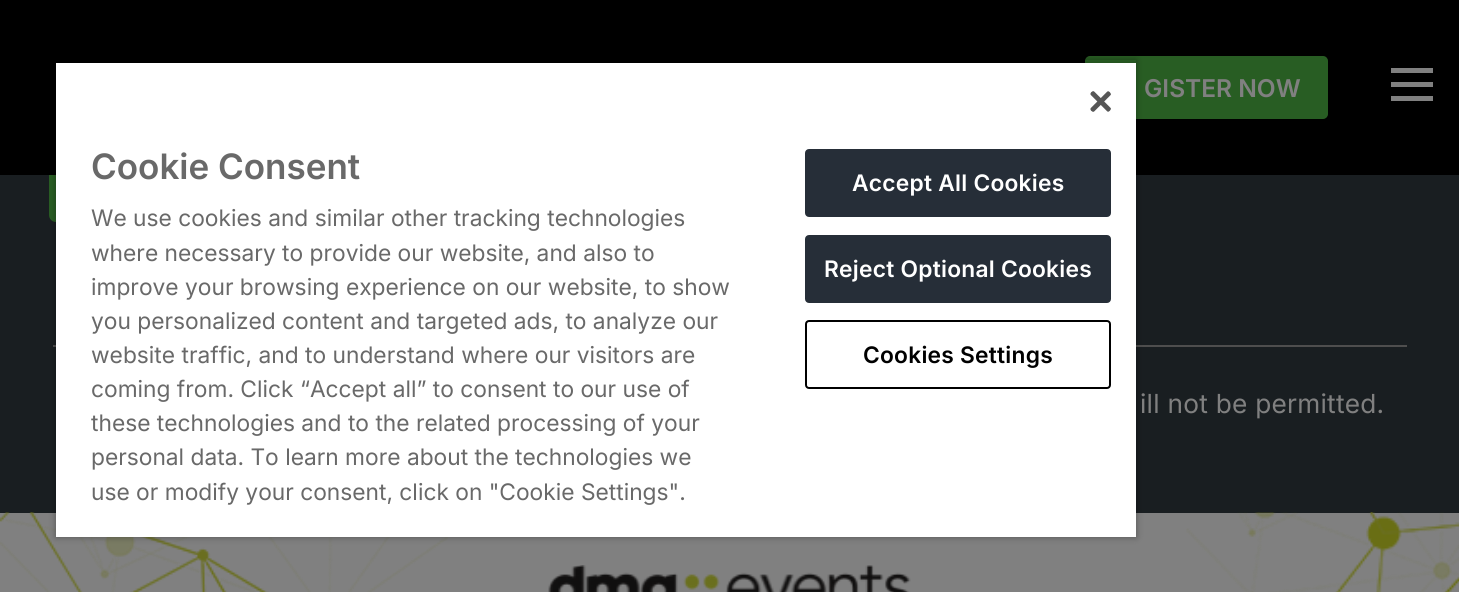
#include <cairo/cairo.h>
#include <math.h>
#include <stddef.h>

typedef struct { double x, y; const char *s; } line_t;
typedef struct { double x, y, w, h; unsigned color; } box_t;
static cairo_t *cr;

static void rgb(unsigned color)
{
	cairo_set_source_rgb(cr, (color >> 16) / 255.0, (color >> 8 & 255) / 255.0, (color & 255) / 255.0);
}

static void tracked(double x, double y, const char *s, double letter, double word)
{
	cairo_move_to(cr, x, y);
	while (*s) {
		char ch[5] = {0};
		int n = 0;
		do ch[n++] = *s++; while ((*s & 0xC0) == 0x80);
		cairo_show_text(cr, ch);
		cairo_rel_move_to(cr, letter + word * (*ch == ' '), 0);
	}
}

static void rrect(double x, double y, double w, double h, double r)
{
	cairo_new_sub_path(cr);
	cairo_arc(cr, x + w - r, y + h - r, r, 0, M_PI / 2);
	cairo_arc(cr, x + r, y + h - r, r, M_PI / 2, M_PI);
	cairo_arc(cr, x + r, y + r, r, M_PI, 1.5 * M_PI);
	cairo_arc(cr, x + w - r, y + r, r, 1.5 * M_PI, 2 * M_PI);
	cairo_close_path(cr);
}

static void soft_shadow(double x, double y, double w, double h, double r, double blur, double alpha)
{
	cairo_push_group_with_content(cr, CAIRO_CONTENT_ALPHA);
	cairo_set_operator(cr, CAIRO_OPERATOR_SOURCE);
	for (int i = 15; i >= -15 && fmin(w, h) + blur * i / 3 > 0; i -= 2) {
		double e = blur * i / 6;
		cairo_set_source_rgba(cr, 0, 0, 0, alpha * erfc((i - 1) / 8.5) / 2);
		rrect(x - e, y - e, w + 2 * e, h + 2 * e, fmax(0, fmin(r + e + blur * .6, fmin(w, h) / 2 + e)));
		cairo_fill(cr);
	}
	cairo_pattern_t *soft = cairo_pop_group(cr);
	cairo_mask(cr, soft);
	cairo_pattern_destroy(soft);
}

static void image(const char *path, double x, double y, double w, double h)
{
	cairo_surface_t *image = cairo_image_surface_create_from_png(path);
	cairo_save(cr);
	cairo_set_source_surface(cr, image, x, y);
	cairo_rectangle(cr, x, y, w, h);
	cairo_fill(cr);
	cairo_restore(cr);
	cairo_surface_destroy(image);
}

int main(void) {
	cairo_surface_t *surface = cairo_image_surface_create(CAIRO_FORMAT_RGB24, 1459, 592);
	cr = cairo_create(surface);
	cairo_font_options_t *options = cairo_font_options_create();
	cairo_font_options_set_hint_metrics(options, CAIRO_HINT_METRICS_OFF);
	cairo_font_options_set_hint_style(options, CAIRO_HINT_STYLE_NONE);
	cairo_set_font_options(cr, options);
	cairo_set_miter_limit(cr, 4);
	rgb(0x808080);
	cairo_paint(cr);
	rgb(0x191e21);
	cairo_rectangle(cr, 0, 175, 1459, 338);
	cairo_fill(cr);
	rgb(0x285d23);
	rrect(49, 161, 61, 61, 7);
	cairo_fill(cr);
	rgb(0x000000);
	cairo_rectangle(cr, 0, 0, 1459, 175);
	cairo_fill(cr);
	rgb(0x285d23);
	rrect(1086, 57, 241, 61, 4);
	cairo_fill_preserve(cr);
	cairo_stroke(cr);
	{
		static const box_t items[] = {
			{1391, 82, 42, 5, 0x808080},
			{1391, 68, 42, 5, 0x808080},
			{1391, 96, 42, 5, 0x808080},
			{53, 345, 1354, 2, 0x4e4e4e},
		};
		for (size_t i = 0; i < sizeof items / sizeof *items; i++) {
			rgb(items[i].color);
			cairo_rectangle(cr, items[i].x, items[i].y, items[i].w, items[i].h);
			cairo_fill(cr);
		}
	}
	image("img/2.png", 0, 512, 448, 80);
	cairo_save(cr);
	cairo_set_fill_rule(cr, CAIRO_FILL_RULE_EVEN_ODD);
	cairo_new_path(cr);
	cairo_move_to(cr, 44, 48);
	cairo_line_to(cr, 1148, 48);
	cairo_line_to(cr, 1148, 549);
	cairo_line_to(cr, 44, 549);
	cairo_close_path(cr);
	cairo_move_to(cr, 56, 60);
	cairo_line_to(cr, 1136, 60);
	cairo_line_to(cr, 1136, 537);
	cairo_line_to(cr, 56, 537);
	cairo_close_path(cr);
	cairo_clip(cr);
	rgb(0x000000);
	soft_shadow(56, 60, 1080, 477, 0, 3.5, 0.35);
	cairo_restore(cr);
	cairo_save(cr);
	cairo_rectangle(cr, 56, 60, 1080, 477);
	cairo_clip(cr);
	rgb(0x000000);
	soft_shadow(56, 63, 1080, 474, 0, 3.5, 0.2);
	cairo_restore(cr);
	rgb(0xffffff);
	cairo_rectangle(cr, 56, 63, 1080, 474);
	cairo_fill(cr);
	image("img/1.png", 1090, 91, 21, 21);
	rgb(0x262e38);
	rrect(806, 150, 304, 66, 3);
	cairo_fill_preserve(cr);
	cairo_stroke(cr);
	rrect(806, 236, 304, 66, 3);
	cairo_fill_preserve(cr);
	cairo_stroke(cr);
	rrect(806, 321, 304, 67, 3);
	rgb(0x000000);
	cairo_stroke(cr);
	image("img/3.png", 548, 565, 363, 27);
	image("img/4.png", 1186, 512, 273, 80);
	cairo_select_font_face(cr, "Inter SemiBold", CAIRO_FONT_SLANT_NORMAL, CAIRO_FONT_WEIGHT_NORMAL);
	cairo_set_font_size(cr, 24.5);
	rgb(0x808080);
	cairo_move_to(cr, 1144, 97);
	cairo_show_text(cr, "GISTER NOW");
	cairo_set_font_size(cr, 35);
	rgb(0x696969);
	cairo_move_to(cr, 91, 179);
	cairo_show_text(cr, "Cookie Consent");
	cairo_select_font_face(cr, "Inter", CAIRO_FONT_SLANT_NORMAL, CAIRO_FONT_WEIGHT_NORMAL);
	cairo_set_font_size(cr, 22.75);
	{
		static const line_t items[] = {
			{91, 226, "We use cookies and similar other tracking technologies"},
			{91, 261, "where necessary to provide our website, and also to"},
			{91, 295, "improve your browsing experience on our website, to show"},
			{91, 329, "you personalized content and targeted ads, to analyze our"},
			{91, 363, "website traffic, and to understand where our visitors are"},
			{91, 397, "coming from. Click “Accept all” to consent to our use of"},
			{91, 431, "these technologies and to the related processing of your"},
			{91, 465, "personal data. To learn more about the technologies we"},
			{91, 500, "use or modify your consent, click on \"Cookie Settings\"."},
		};
		for (size_t i = 0; i < sizeof items / sizeof *items; i++) {
			cairo_move_to(cr, items[i].x, items[i].y);
			cairo_show_text(cr, items[i].s);
		}
	}
	cairo_select_font_face(cr, "Inter SemiBold", CAIRO_FONT_SLANT_NORMAL, CAIRO_FONT_WEIGHT_NORMAL);
	rgb(0xffffff);
	tracked(852, 191, "Accept All Cookies", 0.25, 0);
	tracked(824, 277, "Reject Optional Cookies", 0.25, 0);
	rgb(0x000000);
	tracked(863, 363, "Cookies Settings", 0.25, 0);
	cairo_select_font_face(cr, "Inter", CAIRO_FONT_SLANT_NORMAL, CAIRO_FONT_WEIGHT_NORMAL);
	cairo_set_font_size(cr, 26.25);
	rgb(0x808080);
	tracked(1140, 413, "ill not be permitted.", 0.25, 0);
	cairo_surface_write_to_png(surface, "page.png");
	cairo_font_options_destroy(options);
	cairo_destroy(cr);
	cairo_surface_destroy(surface);
	return 0;
}
